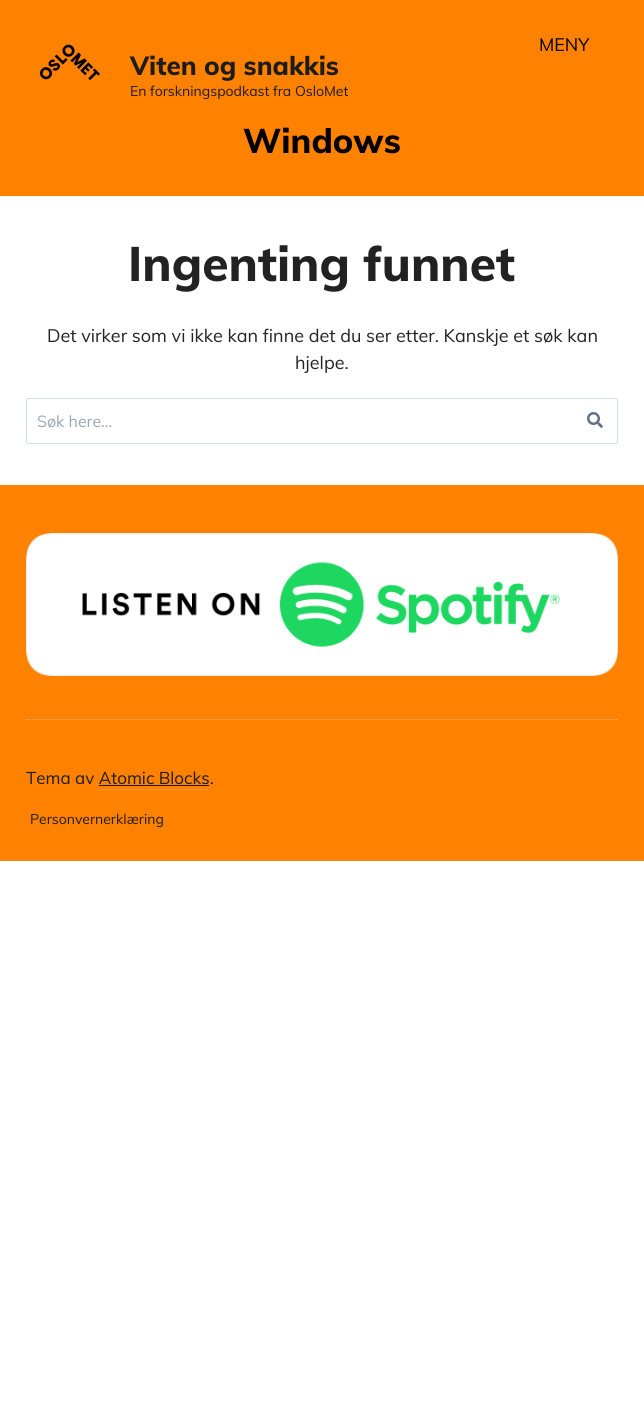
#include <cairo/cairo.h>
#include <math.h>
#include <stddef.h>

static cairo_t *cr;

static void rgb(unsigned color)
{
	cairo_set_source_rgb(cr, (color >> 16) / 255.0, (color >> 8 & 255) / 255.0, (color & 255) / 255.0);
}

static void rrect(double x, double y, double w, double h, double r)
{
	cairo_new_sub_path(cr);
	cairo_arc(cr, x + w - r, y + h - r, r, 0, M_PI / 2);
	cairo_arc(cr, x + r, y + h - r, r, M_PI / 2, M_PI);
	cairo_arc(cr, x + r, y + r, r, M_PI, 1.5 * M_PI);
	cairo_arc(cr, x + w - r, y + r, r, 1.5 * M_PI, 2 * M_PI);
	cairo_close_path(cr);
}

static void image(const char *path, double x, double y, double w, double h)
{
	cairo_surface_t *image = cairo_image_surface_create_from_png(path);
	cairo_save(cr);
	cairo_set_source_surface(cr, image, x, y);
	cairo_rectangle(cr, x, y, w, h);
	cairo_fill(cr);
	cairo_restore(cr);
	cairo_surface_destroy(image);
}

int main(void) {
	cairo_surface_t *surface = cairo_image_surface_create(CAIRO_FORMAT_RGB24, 644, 1407);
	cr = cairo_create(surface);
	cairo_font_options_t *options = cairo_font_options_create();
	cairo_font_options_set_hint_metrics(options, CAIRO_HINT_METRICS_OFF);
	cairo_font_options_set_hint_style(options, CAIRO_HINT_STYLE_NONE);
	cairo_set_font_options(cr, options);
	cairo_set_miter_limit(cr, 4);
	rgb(0xffffff);
	cairo_paint(cr);
	rgb(0xff8100);
	cairo_rectangle(cr, 0, 0, 644, 196);
	cairo_fill(cr);
	image("img/1.png", 40, 44, 60, 37);
	rrect(26.5, 398.5, 591, 45, 1.5);
	rgb(0xd4dde5);
	cairo_set_line_width(cr, 1);
	cairo_stroke(cr);
	image("img/2.png", 587, 412, 16, 16);
	rgb(0xff8100);
	cairo_rectangle(cr, 0, 485, 644, 376);
	cairo_fill(cr);
	image("img/3.png", 26, 533, 592, 143);
	cairo_new_path(cr);
	cairo_move_to(cr, 26, 719.5);
	cairo_line_to(cr, 618, 719.5);
	rgb(0xffb366);
	cairo_set_dash(cr, (double[]){1, 1}, 2, 0);
	cairo_stroke(cr);
	rgb(0x1c1c1b);
	cairo_rectangle(cr, 99, 785, 110, 1);
	cairo_fill(cr);
	cairo_new_path(cr);
	cairo_move_to(cr, 99, 789.5);
	cairo_line_to(cr, 209, 789.5);
	rgb(0xffa74d);
	cairo_stroke(cr);
	cairo_select_font_face(cr, "Muli", CAIRO_FONT_SLANT_NORMAL, CAIRO_FONT_WEIGHT_NORMAL);
	cairo_set_font_size(cr, 18);
	rgb(0x000000);
	cairo_move_to(cr, 539, 51);
	cairo_show_text(cr, "MENY");
	cairo_select_font_face(cr, "Muli ExtraBold", CAIRO_FONT_SLANT_NORMAL, CAIRO_FONT_WEIGHT_NORMAL);
	cairo_set_font_size(cr, 26);
	rgb(0x1c1c1b);
	cairo_move_to(cr, 130, 75);
	cairo_show_text(cr, "Viten og snakkis");
	cairo_select_font_face(cr, "Muli", CAIRO_FONT_SLANT_NORMAL, CAIRO_FONT_WEIGHT_NORMAL);
	cairo_set_font_size(cr, 14);
	cairo_move_to(cr, 130, 96);
	cairo_show_text(cr, "En forskningspodkast fra OsloMet");
	cairo_select_font_face(cr, "Muli ExtraBold", CAIRO_FONT_SLANT_NORMAL, CAIRO_FONT_WEIGHT_NORMAL);
	cairo_set_font_size(cr, 34);
	rgb(0x000000);
	cairo_move_to(cr, 243, 153);
	cairo_show_text(cr, "Windows");
	cairo_set_font_size(cr, 48);
	rgb(0x222222);
	cairo_move_to(cr, 128, 281);
	cairo_show_text(cr, "Ingenting funnet");
	cairo_select_font_face(cr, "Muli", CAIRO_FONT_SLANT_NORMAL, CAIRO_FONT_WEIGHT_NORMAL);
	cairo_set_font_size(cr, 18);
	cairo_move_to(cr, 47, 342);
	cairo_show_text(cr, "Det virker som vi ikke kan finne det du ser etter. Kanskje et søk kan");
	cairo_move_to(cr, 295, 369);
	cairo_show_text(cr, "hjelpe.");
	cairo_set_font_size(cr, 16);
	rgb(0x97a7b5);
	cairo_move_to(cr, 37, 427);
	cairo_show_text(cr, "Søk here...");
	cairo_set_font_size(cr, 17);
	rgb(0x1c1c1b);
	cairo_move_to(cr, 26, 784);
	cairo_show_text(cr, "Tema av Atomic Blocks.");
	cairo_set_font_size(cr, 14);
	cairo_move_to(cr, 30, 824);
	cairo_show_text(cr, "Personvernerklæring");
	cairo_surface_write_to_png(surface, "page.png");
	cairo_font_options_destroy(options);
	cairo_destroy(cr);
	cairo_surface_destroy(surface);
	return 0;
}
